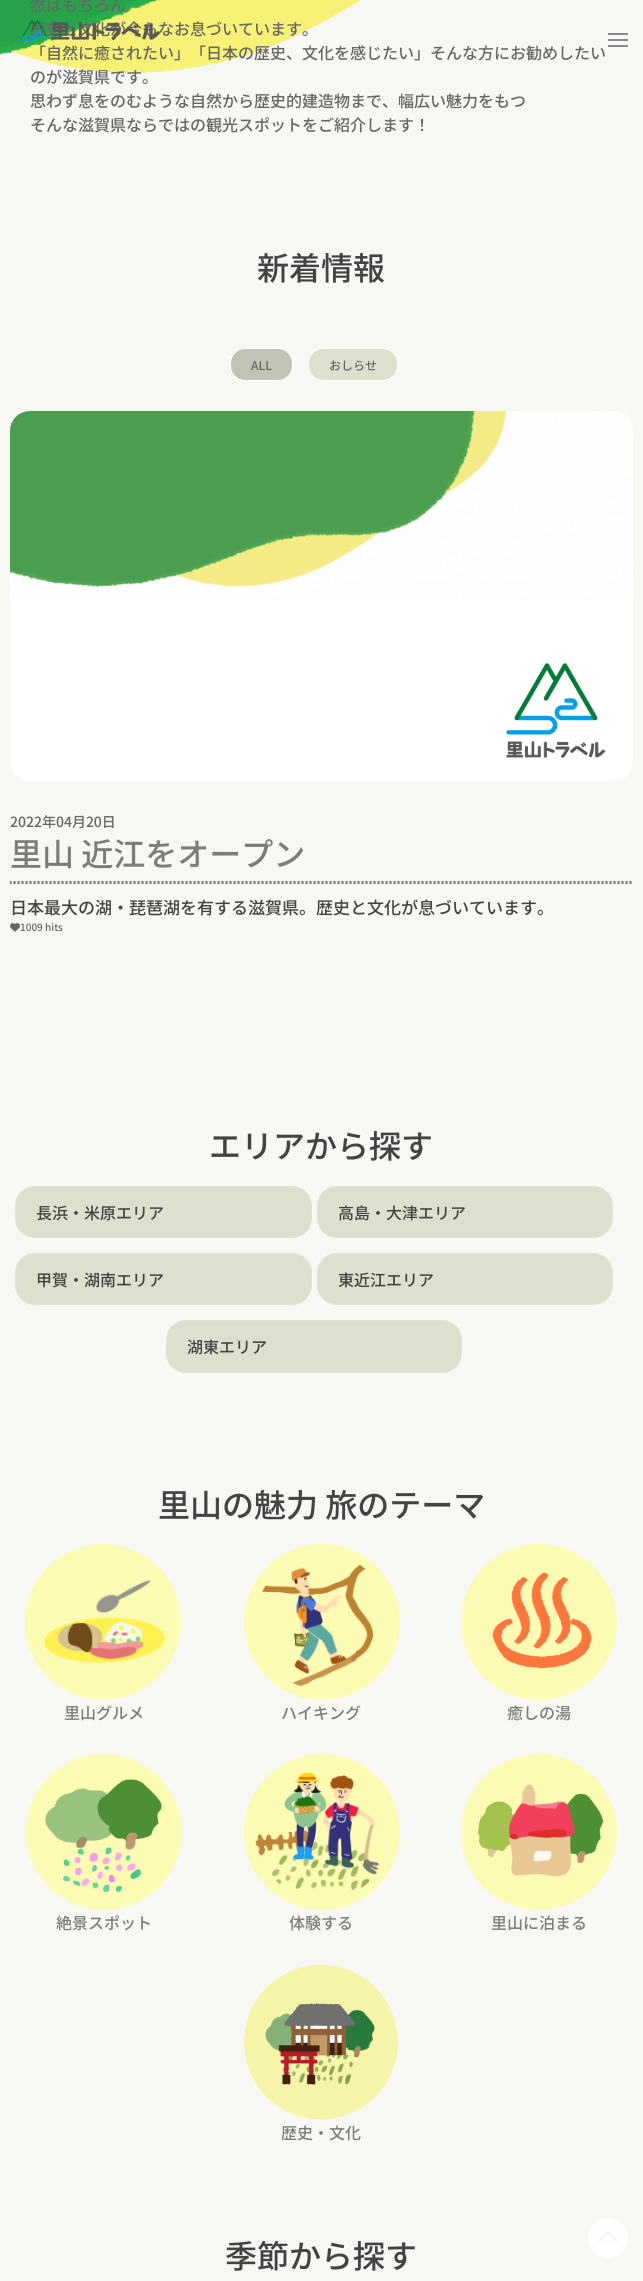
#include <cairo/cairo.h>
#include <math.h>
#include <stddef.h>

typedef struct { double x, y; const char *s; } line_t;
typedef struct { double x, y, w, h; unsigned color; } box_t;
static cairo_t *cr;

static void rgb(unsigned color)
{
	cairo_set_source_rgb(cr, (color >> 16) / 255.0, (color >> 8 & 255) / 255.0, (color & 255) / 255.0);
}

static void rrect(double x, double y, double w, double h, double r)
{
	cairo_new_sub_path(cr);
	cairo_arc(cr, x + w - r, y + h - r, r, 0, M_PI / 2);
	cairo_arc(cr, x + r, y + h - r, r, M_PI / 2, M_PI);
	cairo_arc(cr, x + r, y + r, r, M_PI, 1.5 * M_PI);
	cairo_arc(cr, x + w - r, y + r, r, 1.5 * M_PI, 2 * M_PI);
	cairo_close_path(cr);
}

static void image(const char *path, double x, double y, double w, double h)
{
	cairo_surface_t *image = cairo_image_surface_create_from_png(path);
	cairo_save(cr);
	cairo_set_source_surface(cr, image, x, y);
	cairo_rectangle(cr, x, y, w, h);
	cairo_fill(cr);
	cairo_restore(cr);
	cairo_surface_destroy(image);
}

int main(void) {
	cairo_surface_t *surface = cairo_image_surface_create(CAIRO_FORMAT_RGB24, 643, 2281);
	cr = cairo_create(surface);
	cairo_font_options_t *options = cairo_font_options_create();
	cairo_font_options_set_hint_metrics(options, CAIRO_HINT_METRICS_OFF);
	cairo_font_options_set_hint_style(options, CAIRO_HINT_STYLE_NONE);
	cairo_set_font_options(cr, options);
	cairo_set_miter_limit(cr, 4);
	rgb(0xf7f7f3);
	cairo_paint(cr);
	image("img/1.png", 0, 0, 361, 73);
	rgb(0xc2c3b4);
	rrect(230.5, 348.5, 62, 32, 14.5);
	cairo_fill_preserve(cr);
	rgb(0xffffff);
	cairo_set_line_width(cr, 1);
	cairo_stroke(cr);
	rgb(0xdedfcd);
	rrect(308.5, 348.5, 89, 32, 14.5);
	cairo_fill_preserve(cr);
	rgb(0xffffff);
	cairo_stroke(cr);
	image("img/2.png", 10, 411, 623, 370);
	image("img/3.png", 10, 881, 622, 3);
	image("img/4.png", 10, 923, 10, 9);
	rgb(0xdedfcd);
	rrect(15, 1186, 297, 52, 20);
	cairo_fill(cr);
	rrect(15.5, 1186.5, 296, 51, 19.5);
	cairo_set_source_rgba(cr, 1, 1, 1, 0.1);
	cairo_stroke(cr);
	rgb(0xdedfcd);
	rrect(317, 1186, 296, 52, 20);
	cairo_fill(cr);
	rrect(317.5, 1186.5, 295, 51, 19.5);
	cairo_set_source_rgba(cr, 1, 1, 1, 0.1);
	cairo_stroke(cr);
	rgb(0xdedfcd);
	rrect(15, 1253, 297, 52, 20);
	cairo_fill(cr);
	rrect(15.5, 1253.5, 296, 51, 19.5);
	cairo_set_source_rgba(cr, 1, 1, 1, 0.1);
	cairo_stroke(cr);
	rgb(0xdedfcd);
	rrect(317, 1253, 296, 52, 20);
	cairo_fill(cr);
	rrect(317.5, 1253.5, 295, 51, 19.5);
	cairo_set_source_rgba(cr, 1, 1, 1, 0.1);
	cairo_stroke(cr);
	rgb(0xdedfcd);
	rrect(166, 1320, 296, 53, 20);
	cairo_fill(cr);
	rrect(166.5, 1320.5, 295, 52, 19.5);
	cairo_set_source_rgba(cr, 1, 1, 1, 0.1);
	cairo_stroke(cr);
	image("img/5.png", 25, 1544, 156, 156);
	image("img/6.png", 244, 1544, 156, 156);
	image("img/7.png", 461, 1544, 156, 156);
	image("img/8.png", 26, 1754, 156, 156);
	image("img/9.png", 244, 1754, 156, 156);
	image("img/10.png", 461, 1754, 156, 156);
	image("img/11.png", 244, 1964, 154, 156);
	image("img/12.png", 588, 2218, 40, 40);
	{
		static const box_t items[] = {
			{608, 39, 20, 2, 0x888888},
			{608, 33, 20, 2, 0x888888},
			{608, 45, 20, 2, 0x888888},
		};
		for (size_t i = 0; i < sizeof items / sizeof *items; i++) {
			rgb(items[i].color);
			cairo_rectangle(cr, items[i].x, items[i].y, items[i].w, items[i].h);
			cairo_fill(cr);
		}
	}
	cairo_select_font_face(cr, "Noto Sans JP Medium", CAIRO_FONT_SLANT_NORMAL, CAIRO_FONT_WEIGHT_NORMAL);
	cairo_set_font_size(cr, 16);
	rgb(0x666666);
	{
		static const line_t items[] = {
			{30, 11, "然はもちろん"},
			{30, 35, "歴史と文化が今もなお息づいています。"},
			{30, 59, "「自然に癒されたい」「日本の歴史、文化を感じたい」そんな方にお勧めしたい"},
			{30, 83, "のが滋賀県です。"},
			{30, 107, "思わず息をのむような自然から歴史的建造物まで、幅広い魅力をもつ"},
			{30, 131, "そんな滋賀県ならではの観光スポットをご紹介します！"},
		};
		for (size_t i = 0; i < sizeof items / sizeof *items; i++) {
			cairo_move_to(cr, items[i].x, items[i].y);
			cairo_show_text(cr, items[i].s);
		}
	}
	cairo_set_font_size(cr, 32);
	rgb(0x434343);
	cairo_move_to(cr, 257, 280);
	cairo_show_text(cr, "新着情報");
	cairo_set_font_size(cr, 12);
	rgb(0x666666);
	cairo_move_to(cr, 251, 370);
	cairo_show_text(cr, "ALL");
	cairo_move_to(cr, 329, 370);
	cairo_show_text(cr, "おしらせ");
	cairo_set_font_size(cr, 14);
	cairo_move_to(cr, 10, 827);
	cairo_show_text(cr, "2022年04月20日");
	cairo_set_font_size(cr, 32);
	rgb(0x7c7c7a);
	cairo_move_to(cr, 10, 866);
	cairo_show_text(cr, "里山 近江をオープン");
	cairo_set_font_size(cr, 17);
	rgb(0x434343);
	cairo_move_to(cr, 10, 914);
	cairo_show_text(cr, "日本最大の湖・琵琶湖を有する滋賀県。歴史と文化が息づいています。");
	cairo_set_font_size(cr, 10);
	rgb(0x666666);
	cairo_move_to(cr, 20, 931);
	cairo_show_text(cr, "1009 hits");
	cairo_set_font_size(cr, 32);
	rgb(0x434343);
	cairo_move_to(cr, 209, 1158);
	cairo_show_text(cr, "エリアから探す");
	cairo_set_font_size(cr, 16);
	{
		static const line_t items[] = {
			{36, 1219, "長浜・米原エリア"},
			{338, 1219, "高島・大津エリア"},
			{36, 1286, "甲賀・湖南エリア"},
			{338, 1286, "東近江エリア"},
			{187, 1353, "湖東エリア"},
		};
		for (size_t i = 0; i < sizeof items / sizeof *items; i++) {
			cairo_move_to(cr, items[i].x, items[i].y);
			cairo_show_text(cr, items[i].s);
		}
	}
	cairo_set_font_size(cr, 32);
	cairo_move_to(cr, 158, 1517);
	cairo_show_text(cr, "里山の魅力 旅のテーマ");
	cairo_set_font_size(cr, 16);
	rgb(0x7c7c7a);
	{
		static const line_t items[] = {
			{64, 1719, "里山グルメ"},
			{281, 1719, "ハイキング"},
			{507, 1719, "癒しの湯"},
			{56, 1929, "絶景スポット"},
			{289, 1929, "体験する"},
			{491, 1929, "里山に泊まる"},
			{281, 2139, "歴史・文化"},
		};
		for (size_t i = 0; i < sizeof items / sizeof *items; i++) {
			cairo_move_to(cr, items[i].x, items[i].y);
			cairo_show_text(cr, items[i].s);
		}
	}
	cairo_set_font_size(cr, 32);
	rgb(0x434343);
	cairo_move_to(cr, 225, 2268);
	cairo_show_text(cr, "季節から探す");
	image("img/13.png", 20, 20, 140, 21);
	cairo_surface_write_to_png(surface, "page.png");
	cairo_font_options_destroy(options);
	cairo_destroy(cr);
	cairo_surface_destroy(surface);
	return 0;
}
